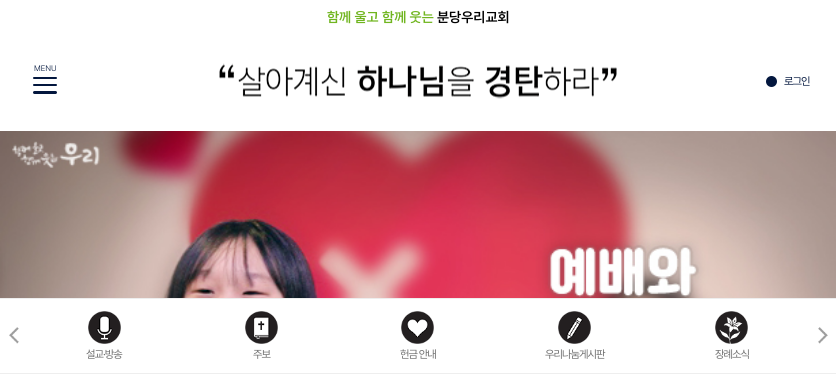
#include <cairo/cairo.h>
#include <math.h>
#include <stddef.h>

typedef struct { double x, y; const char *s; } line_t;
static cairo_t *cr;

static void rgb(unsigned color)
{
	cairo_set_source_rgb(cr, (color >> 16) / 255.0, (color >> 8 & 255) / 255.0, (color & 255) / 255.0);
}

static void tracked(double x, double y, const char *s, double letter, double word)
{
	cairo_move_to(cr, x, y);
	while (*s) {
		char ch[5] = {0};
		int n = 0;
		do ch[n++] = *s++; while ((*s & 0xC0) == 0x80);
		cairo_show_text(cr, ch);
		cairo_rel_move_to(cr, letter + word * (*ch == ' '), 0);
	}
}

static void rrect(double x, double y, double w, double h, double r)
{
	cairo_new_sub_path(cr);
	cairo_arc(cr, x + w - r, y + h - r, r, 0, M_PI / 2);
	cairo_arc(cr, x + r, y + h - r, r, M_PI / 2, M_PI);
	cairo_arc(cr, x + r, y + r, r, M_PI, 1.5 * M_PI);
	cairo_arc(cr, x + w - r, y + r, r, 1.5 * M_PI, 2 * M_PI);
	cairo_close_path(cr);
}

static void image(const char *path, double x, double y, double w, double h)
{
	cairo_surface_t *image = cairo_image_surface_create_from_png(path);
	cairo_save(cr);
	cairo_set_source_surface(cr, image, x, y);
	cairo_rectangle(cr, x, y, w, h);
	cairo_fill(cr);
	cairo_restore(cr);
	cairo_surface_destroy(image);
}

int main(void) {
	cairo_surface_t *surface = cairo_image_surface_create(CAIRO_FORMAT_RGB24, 836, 374);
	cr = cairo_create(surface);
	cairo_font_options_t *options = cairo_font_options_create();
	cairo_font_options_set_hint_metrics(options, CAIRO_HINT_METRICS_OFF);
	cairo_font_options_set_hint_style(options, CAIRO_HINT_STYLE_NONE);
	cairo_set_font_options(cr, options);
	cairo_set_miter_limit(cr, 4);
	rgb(0xffffff);
	cairo_paint(cr);
	rgb(0x03173e);
	rrect(33, 77, 24, 2, 1);
	cairo_fill(cr);
	rrect(33, 84, 24, 2, 1);
	cairo_fill(cr);
	rrect(33, 91, 24, 3, 1.5);
	cairo_fill(cr);
	image("img/1.png", 219, 63, 398, 36);
	cairo_arc(cr, 771.5, 81.5, 5.5, 0, 2 * M_PI);
	cairo_fill(cr);
	image("img/2.png", 0, 131, 836, 167);
	rgb(0xeeeeee);
	cairo_rectangle(cr, 0, 298, 836, 1);
	cairo_fill(cr);
	cairo_rectangle(cr, 0, 373, 836, 1);
	cairo_fill(cr);
	image("img/3.png", 9, 327, 10, 17);
	image("img/4.png", 818, 327, 10, 17);
	image("img/5.png", 88, 311, 33, 33);
	image("img/6.png", 245, 311, 33, 33);
	image("img/7.png", 401, 311, 33, 33);
	image("img/8.png", 558, 311, 33, 33);
	image("img/9.png", 715, 311, 33, 33);
	cairo_select_font_face(cr, "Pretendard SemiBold", CAIRO_FONT_SLANT_NORMAL, CAIRO_FONT_WEIGHT_NORMAL);
	cairo_set_font_size(cr, 14);
	rgb(0x70b51f);
	cairo_move_to(cr, 327, 22);
	cairo_show_text(cr, "함께 울고 함께 웃는");
	rgb(0x000000);
	cairo_move_to(cr, 437, 22);
	cairo_show_text(cr, "분당우리교회");
	cairo_select_font_face(cr, "Pretendard Light", CAIRO_FONT_SLANT_NORMAL, CAIRO_FONT_WEIGHT_NORMAL);
	cairo_set_font_size(cr, 8);
	rgb(0x03173e);
	cairo_move_to(cr, 34, 71);
	cairo_show_text(cr, "MENU");
	cairo_select_font_face(cr, "Pretendard", CAIRO_FONT_SLANT_NORMAL, CAIRO_FONT_WEIGHT_NORMAL);
	cairo_set_font_size(cr, 11);
	tracked(784, 85, "로그인", -1, 0);
	rgb(0x6e6e6e);
	{
		static const line_t items[] = {
			{86, 358, "설교·방송"},
			{253, 358, "주보"},
			{400, 358, "헌금 안내"},
			{545, 358, "우리나눔게시판"},
			{715, 358, "장례소식"},
		};
		for (size_t i = 0; i < sizeof items / sizeof *items; i++) {
			tracked(items[i].x, items[i].y, items[i].s, -1, 0);
		}
	}
	cairo_surface_write_to_png(surface, "page.png");
	cairo_font_options_destroy(options);
	cairo_destroy(cr);
	cairo_surface_destroy(surface);
	return 0;
}
